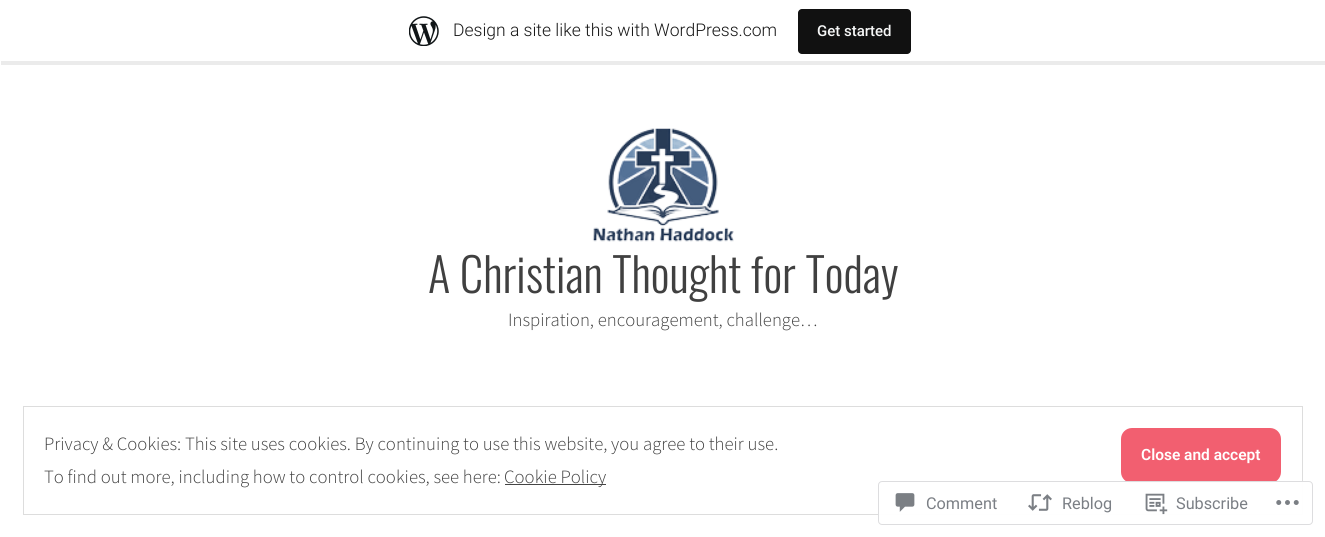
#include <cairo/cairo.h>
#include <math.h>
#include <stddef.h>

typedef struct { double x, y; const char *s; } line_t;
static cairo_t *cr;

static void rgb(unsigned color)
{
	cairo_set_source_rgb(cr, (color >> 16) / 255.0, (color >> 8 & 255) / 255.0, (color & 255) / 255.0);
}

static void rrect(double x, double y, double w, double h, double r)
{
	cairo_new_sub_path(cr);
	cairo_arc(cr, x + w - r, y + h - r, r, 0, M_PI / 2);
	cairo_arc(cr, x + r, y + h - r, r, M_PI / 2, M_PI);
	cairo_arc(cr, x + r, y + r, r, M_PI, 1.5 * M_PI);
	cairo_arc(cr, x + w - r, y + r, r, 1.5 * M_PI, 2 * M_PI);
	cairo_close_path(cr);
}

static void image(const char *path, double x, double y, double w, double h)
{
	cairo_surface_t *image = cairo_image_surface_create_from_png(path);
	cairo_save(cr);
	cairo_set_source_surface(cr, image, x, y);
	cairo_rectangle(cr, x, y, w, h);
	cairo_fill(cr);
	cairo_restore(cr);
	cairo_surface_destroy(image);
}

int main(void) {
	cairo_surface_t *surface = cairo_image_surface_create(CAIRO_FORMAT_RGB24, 1325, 537);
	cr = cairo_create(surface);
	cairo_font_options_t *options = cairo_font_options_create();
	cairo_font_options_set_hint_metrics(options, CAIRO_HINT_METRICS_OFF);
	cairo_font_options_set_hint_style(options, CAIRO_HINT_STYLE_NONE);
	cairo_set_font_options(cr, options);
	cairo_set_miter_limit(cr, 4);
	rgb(0xffffff);
	cairo_paint(cr);
	cairo_set_source_rgba(cr, 0, 0, 0, 0.08);
	cairo_new_path(cr);
	cairo_move_to(cr, 1, 61);
	cairo_line_to(cr, 1, 65);
	cairo_line_to(cr, 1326, 65);
	cairo_line_to(cr, 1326, 4);
	cairo_line_to(cr, 1325, 4);
	cairo_line_to(cr, 1325, 61);
	cairo_close_path(cr);
	cairo_fill(cr);
	image("img/1.png", 409, 16, 30, 30);
	rgb(0x111111);
	rrect(798, 9, 113, 45, 4);
	cairo_fill(cr);
	image("img/2.png", 592, 128, 142, 114);
	cairo_rectangle(cr, 23.5, 406.5, 1279, 108);
	rgb(0xdddddd);
	cairo_set_line_width(cr, 1);
	cairo_stroke(cr);
	rgb(0xf25f70);
	rrect(1121, 428, 160, 55, 11);
	cairo_fill(cr);
	rgb(0x444444);
	cairo_rectangle(cr, 505, 484, 101, 1);
	cairo_fill(cr);
	cairo_set_source_rgba(cr, 1, 1, 1, 0.98);
	rrect(878, 481, 435, 44, 4);
	cairo_fill(cr);
	rrect(878.5, 481.5, 434, 43, 3.5);
	cairo_set_source_rgba(cr, 0.863, 0.863, 0.871, 0.98);
	cairo_stroke(cr);
	image("img/3.png", 895, 493, 20, 19);
	image("img/4.png", 1028, 494, 24, 17);
	image("img/5.png", 1145, 493, 23, 22);
	image("img/6.png", 1276, 500, 23, 5);
	cairo_select_font_face(cr, "Roboto Light", CAIRO_FONT_SLANT_NORMAL, CAIRO_FONT_WEIGHT_NORMAL);
	cairo_set_font_size(cr, 17.5);
	rgb(0x171717);
	cairo_move_to(cr, 453, 36);
	cairo_show_text(cr, "Design a site like this with WordPress.com");
	cairo_select_font_face(cr, "Roboto Medium", CAIRO_FONT_SLANT_NORMAL, CAIRO_FONT_WEIGHT_NORMAL);
	cairo_set_font_size(cr, 15);
	rgb(0xf6f7f7);
	cairo_move_to(cr, 817, 36);
	cairo_show_text(cr, "Get started");
	cairo_select_font_face(cr, "Oswald Light", CAIRO_FONT_SLANT_NORMAL, CAIRO_FONT_WEIGHT_NORMAL);
	cairo_set_font_size(cr, 46.75);
	rgb(0x404040);
	cairo_move_to(cr, 428, 293);
	cairo_show_text(cr, "A Christian Thought for Today");
	cairo_select_font_face(cr, "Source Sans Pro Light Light", CAIRO_FONT_SLANT_NORMAL, CAIRO_FONT_WEIGHT_NORMAL);
	cairo_set_font_size(cr, 18.75);
	cairo_move_to(cr, 508, 326);
	cairo_show_text(cr, "Inspiration, encouragement, challenge…");
	cairo_move_to(cr, 44, 450);
	cairo_show_text(cr, "Privacy & Cookies: This site uses cookies. By continuing to use this website, you agree to their use.");
	cairo_select_font_face(cr, "Roboto SemiBold", CAIRO_FONT_SLANT_NORMAL, CAIRO_FONT_WEIGHT_NORMAL);
	cairo_set_font_size(cr, 15.5);
	rgb(0xffffff);
	cairo_move_to(cr, 1141, 460);
	cairo_show_text(cr, "Close and accept");
	cairo_select_font_face(cr, "Source Sans Pro Light Light", CAIRO_FONT_SLANT_NORMAL, CAIRO_FONT_WEIGHT_NORMAL);
	cairo_set_font_size(cr, 18.75);
	rgb(0x404040);
	cairo_move_to(cr, 44, 483);
	cairo_show_text(cr, "To find out more, including how to control cookies, see here:");
	cairo_move_to(cr, 504, 483);
	cairo_show_text(cr, "Cookie Policy");
	cairo_select_font_face(cr, "Roboto", CAIRO_FONT_SLANT_NORMAL, CAIRO_FONT_WEIGHT_NORMAL);
	cairo_set_font_size(cr, 16.25);
	rgb(0x7b7f85);
	{
		static const line_t items[] = {
			{926, 509, "Comment"},
			{1062, 509, "Reblog"},
			{1176, 509, "Subscribe"},
		};
		for (size_t i = 0; i < sizeof items / sizeof *items; i++) {
			cairo_move_to(cr, items[i].x, items[i].y);
			cairo_show_text(cr, items[i].s);
		}
	}
	cairo_surface_write_to_png(surface, "page.png");
	cairo_font_options_destroy(options);
	cairo_destroy(cr);
	cairo_surface_destroy(surface);
	return 0;
}
